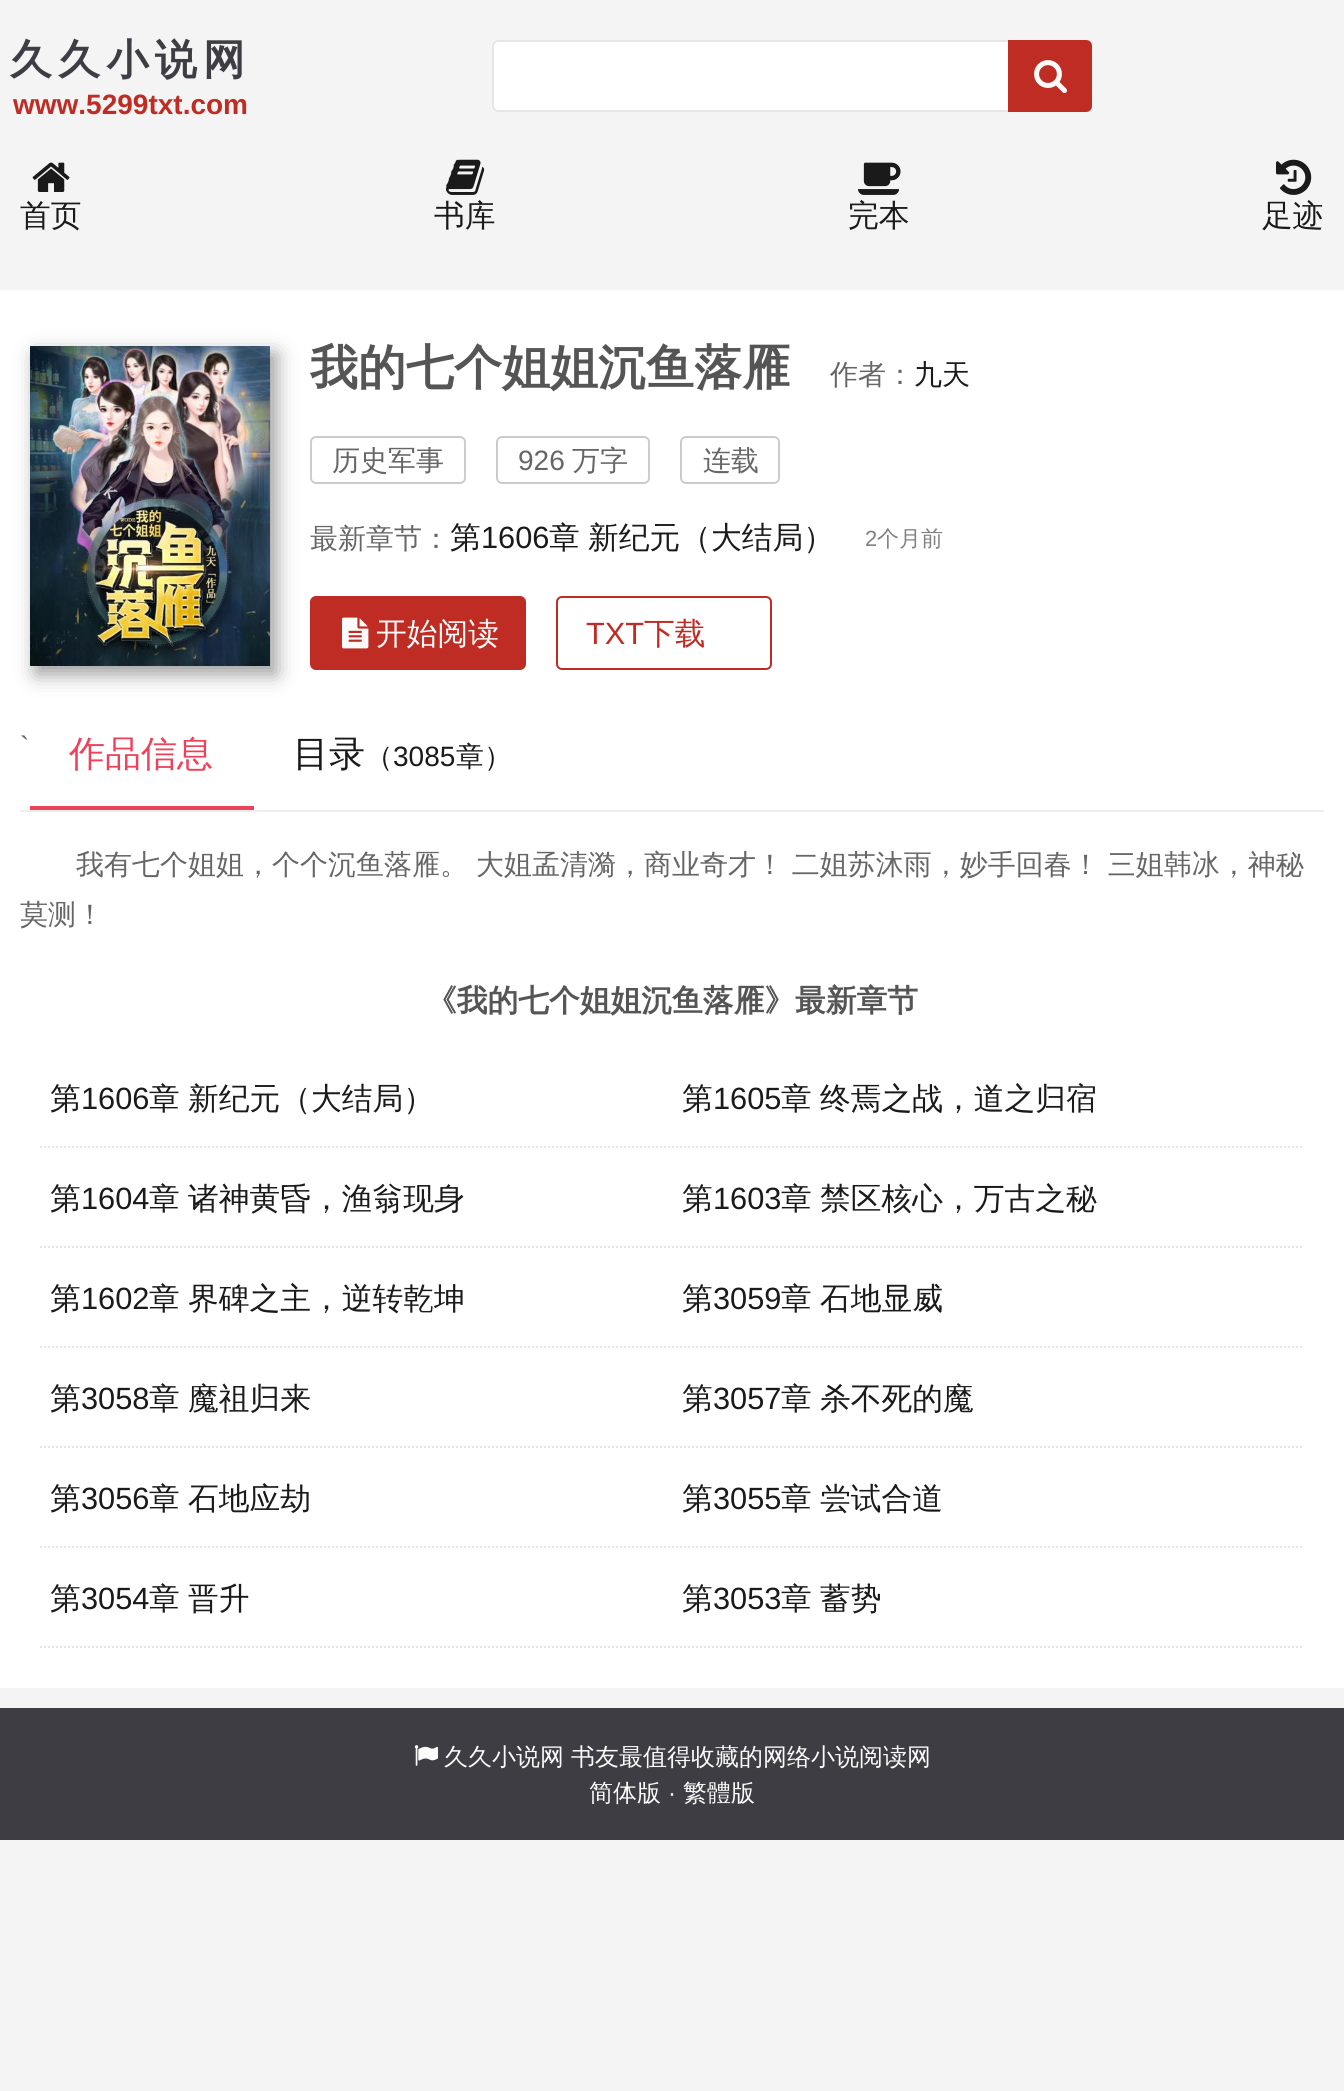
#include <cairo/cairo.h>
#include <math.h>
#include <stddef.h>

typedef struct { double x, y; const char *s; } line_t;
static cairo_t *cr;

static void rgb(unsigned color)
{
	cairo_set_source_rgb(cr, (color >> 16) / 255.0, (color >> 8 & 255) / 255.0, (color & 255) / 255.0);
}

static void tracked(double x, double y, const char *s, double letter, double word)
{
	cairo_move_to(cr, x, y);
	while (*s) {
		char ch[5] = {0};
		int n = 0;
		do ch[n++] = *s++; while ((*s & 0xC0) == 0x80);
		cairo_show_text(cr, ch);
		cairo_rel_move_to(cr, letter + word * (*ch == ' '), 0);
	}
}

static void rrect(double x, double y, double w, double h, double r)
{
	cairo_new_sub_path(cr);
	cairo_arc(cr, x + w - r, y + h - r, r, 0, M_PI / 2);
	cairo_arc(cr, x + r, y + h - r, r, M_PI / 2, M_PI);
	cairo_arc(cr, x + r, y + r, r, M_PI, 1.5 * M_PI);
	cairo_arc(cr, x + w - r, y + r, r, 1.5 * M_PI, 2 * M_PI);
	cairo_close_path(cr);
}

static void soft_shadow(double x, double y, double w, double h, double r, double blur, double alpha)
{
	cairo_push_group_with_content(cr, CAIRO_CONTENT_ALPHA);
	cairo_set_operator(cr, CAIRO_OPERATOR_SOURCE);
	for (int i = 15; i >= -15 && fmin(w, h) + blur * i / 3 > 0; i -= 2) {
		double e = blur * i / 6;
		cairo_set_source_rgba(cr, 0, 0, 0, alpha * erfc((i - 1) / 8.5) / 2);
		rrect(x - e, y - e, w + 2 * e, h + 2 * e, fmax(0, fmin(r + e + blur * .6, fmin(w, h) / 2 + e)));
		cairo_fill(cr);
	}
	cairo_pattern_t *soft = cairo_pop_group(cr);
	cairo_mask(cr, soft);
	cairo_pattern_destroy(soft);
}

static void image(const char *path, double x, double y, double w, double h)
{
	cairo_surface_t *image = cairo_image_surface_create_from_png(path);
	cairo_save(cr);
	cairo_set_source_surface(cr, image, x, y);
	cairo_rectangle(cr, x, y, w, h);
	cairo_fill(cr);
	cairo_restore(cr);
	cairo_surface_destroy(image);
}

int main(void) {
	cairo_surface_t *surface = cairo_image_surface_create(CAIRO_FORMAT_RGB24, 1344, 2091);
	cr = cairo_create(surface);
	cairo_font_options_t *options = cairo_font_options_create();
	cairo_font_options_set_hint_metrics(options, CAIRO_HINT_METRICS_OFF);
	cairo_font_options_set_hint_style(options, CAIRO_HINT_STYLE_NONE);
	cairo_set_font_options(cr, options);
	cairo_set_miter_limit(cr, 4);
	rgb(0xf4f4f4);
	cairo_paint(cr);
	rgb(0xffffff);
	cairo_new_path(cr);
	cairo_move_to(cr, 498, 40);
	cairo_line_to(cr, 1008, 40);
	cairo_line_to(cr, 1008, 112);
	cairo_line_to(cr, 498, 112);
	cairo_curve_to(cr, 494.5, 112, 492, 109.5, 492, 106);
	cairo_line_to(cr, 492, 46);
	cairo_curve_to(cr, 492, 42.5, 494.5, 40, 498, 40);
	cairo_close_path(cr);
	cairo_fill(cr);
	rgb(0xe6e6e6);
	cairo_set_fill_rule(cr, CAIRO_FILL_RULE_EVEN_ODD);
	cairo_new_path(cr);
	cairo_move_to(cr, 498, 40);
	cairo_line_to(cr, 1008, 40);
	cairo_line_to(cr, 1008, 112);
	cairo_line_to(cr, 498, 112);
	cairo_curve_to(cr, 495, 112, 492, 109, 492, 106);
	cairo_line_to(cr, 492, 46);
	cairo_curve_to(cr, 492, 43, 495, 40, 498, 40);
	cairo_close_path(cr);
	cairo_move_to(cr, 498, 42);
	cairo_line_to(cr, 1008, 42);
	cairo_line_to(cr, 1008, 110);
	cairo_line_to(cr, 498, 110);
	cairo_curve_to(cr, 496, 110, 494, 108, 494, 106);
	cairo_line_to(cr, 494, 46);
	cairo_curve_to(cr, 494, 44, 496, 42, 498, 42);
	cairo_close_path(cr);
	cairo_fill(cr);
	rgb(0xbf2c24);
	cairo_new_path(cr);
	cairo_move_to(cr, 1008, 40);
	cairo_line_to(cr, 1086, 40);
	cairo_curve_to(cr, 1089.5, 40, 1092, 42.5, 1092, 46);
	cairo_line_to(cr, 1092, 106);
	cairo_curve_to(cr, 1092, 109.5, 1089.5, 112, 1086, 112);
	cairo_line_to(cr, 1008, 112);
	cairo_close_path(cr);
	cairo_fill(cr);
	image("img/1.png", 1034, 60, 33, 34);
	image("img/2.png", 32, 162, 38, 30);
	image("img/3.png", 446, 159, 39, 36);
	image("img/4.png", 858, 162, 43, 33);
	image("img/5.png", 1276, 159, 36, 36);
	rgb(0xffffff);
	cairo_rectangle(cr, 0, 290, 1344, 1398);
	cairo_fill(cr);
	rgb(0x999999);
	soft_shadow(36, 354, 240, 320, 0, 10, 1);
	image("img/6.png", 30, 346, 240, 320);
	rrect(311, 437, 154, 46, 5);
	rgb(0xcccccc);
	cairo_stroke(cr);
	rrect(497, 437, 152, 46, 5);
	cairo_stroke(cr);
	rrect(681, 437, 98, 46, 5);
	cairo_stroke(cr);
	rgb(0xbf2c24);
	rrect(311, 597, 214, 72, 5);
	cairo_fill_preserve(cr);
	cairo_stroke(cr);
	image("img/7.png", 342, 617, 27, 32);
	rrect(557, 597, 214, 72, 5);
	cairo_stroke(cr);
	rgb(0xeeeeee);
	cairo_rectangle(cr, 20, 810, 1304, 2);
	cairo_fill(cr);
	rgb(0xed4259);
	cairo_rectangle(cr, 30, 806, 224, 4);
	cairo_fill(cr);
	cairo_new_path(cr);
	cairo_move_to(cr, 40, 1147);
	cairo_line_to(cr, 672, 1147);
	rgb(0xe5e5e5);
	cairo_set_dash(cr, (double[]){2, 2}, 2, 0);
	cairo_stroke(cr);
	cairo_new_path(cr);
	cairo_move_to(cr, 672, 1147);
	cairo_line_to(cr, 1304, 1147);
	cairo_stroke(cr);
	cairo_new_path(cr);
	cairo_move_to(cr, 40, 1247);
	cairo_line_to(cr, 672, 1247);
	cairo_stroke(cr);
	cairo_new_path(cr);
	cairo_move_to(cr, 672, 1247);
	cairo_line_to(cr, 1304, 1247);
	cairo_stroke(cr);
	cairo_new_path(cr);
	cairo_move_to(cr, 40, 1347);
	cairo_line_to(cr, 672, 1347);
	cairo_stroke(cr);
	cairo_new_path(cr);
	cairo_move_to(cr, 672, 1347);
	cairo_line_to(cr, 1304, 1347);
	cairo_stroke(cr);
	cairo_new_path(cr);
	cairo_move_to(cr, 40, 1447);
	cairo_line_to(cr, 672, 1447);
	cairo_stroke(cr);
	cairo_new_path(cr);
	cairo_move_to(cr, 672, 1447);
	cairo_line_to(cr, 1304, 1447);
	cairo_stroke(cr);
	cairo_new_path(cr);
	cairo_move_to(cr, 40, 1547);
	cairo_line_to(cr, 672, 1547);
	cairo_stroke(cr);
	cairo_new_path(cr);
	cairo_move_to(cr, 672, 1547);
	cairo_line_to(cr, 1304, 1547);
	cairo_stroke(cr);
	cairo_new_path(cr);
	cairo_move_to(cr, 40, 1647);
	cairo_line_to(cr, 672, 1647);
	cairo_stroke(cr);
	cairo_new_path(cr);
	cairo_move_to(cr, 672, 1647);
	cairo_line_to(cr, 1304, 1647);
	cairo_stroke(cr);
	rgb(0x3e3d43);
	cairo_rectangle(cr, 0, 1708, 1344, 132);
	cairo_fill(cr);
	image("img/8.png", 414, 1745, 24, 21);
	cairo_select_font_face(cr, "WenQuanYi Zen Hei", CAIRO_FONT_SLANT_NORMAL, CAIRO_FONT_WEIGHT_BOLD);
	cairo_set_font_size(cr, 42);
	tracked(10, 74, "久久小说网", 6.25, 0);
	cairo_select_font_face(cr, "Liberation Sans", CAIRO_FONT_SLANT_NORMAL, CAIRO_FONT_WEIGHT_BOLD);
	cairo_set_font_size(cr, 28);
	rgb(0xbf2c24);
	cairo_move_to(cr, 13, 114);
	cairo_show_text(cr, "www.5299txt.com");
	cairo_select_font_face(cr, "WenQuanYi Zen Hei Medium", CAIRO_FONT_SLANT_NORMAL, CAIRO_FONT_WEIGHT_NORMAL);
	cairo_set_font_size(cr, 30.75);
	rgb(0x1a1a1a);
	{
		static const line_t items[] = {
			{20, 226, "首页"},
			{434, 226, "书库"},
			{848, 226, "完本"},
			{1262, 226, "足迹"},
		};
		for (size_t i = 0; i < sizeof items / sizeof *items; i++) {
			cairo_move_to(cr, items[i].x, items[i].y);
			cairo_show_text(cr, items[i].s);
		}
	}
	cairo_select_font_face(cr, "WenQuanYi Zen Hei", CAIRO_FONT_SLANT_NORMAL, CAIRO_FONT_WEIGHT_BOLD);
	cairo_set_font_size(cr, 48);
	rgb(0x555555);
	cairo_move_to(cr, 310, 384);
	cairo_show_text(cr, "我的七个姐姐沉鱼落雁");
	cairo_select_font_face(cr, "WenQuanYi Zen Hei Medium", CAIRO_FONT_SLANT_NORMAL, CAIRO_FONT_WEIGHT_NORMAL);
	cairo_set_font_size(cr, 28);
	rgb(0x666666);
	cairo_move_to(cr, 830, 384);
	cairo_show_text(cr, "作者：");
	rgb(0x1a1a1a);
	cairo_move_to(cr, 914, 384);
	cairo_show_text(cr, "九天");
	rgb(0x666666);
	cairo_move_to(cr, 332, 470);
	cairo_show_text(cr, "历史军事");
	cairo_select_font_face(cr, "Liberation Sans", CAIRO_FONT_SLANT_NORMAL, CAIRO_FONT_WEIGHT_NORMAL);
	cairo_move_to(cr, 518, 470);
	cairo_show_text(cr, "926");
	cairo_select_font_face(cr, "WenQuanYi Zen Hei Medium", CAIRO_FONT_SLANT_NORMAL, CAIRO_FONT_WEIGHT_NORMAL);
	{
		static const line_t items[] = {
			{572, 470, "万字"},
			{703, 470, "连载"},
			{310, 548, "最新章节："},
		};
		for (size_t i = 0; i < sizeof items / sizeof *items; i++) {
			cairo_move_to(cr, items[i].x, items[i].y);
			cairo_show_text(cr, items[i].s);
		}
	}
	cairo_set_font_size(cr, 30.75);
	rgb(0x1a1a1a);
	cairo_move_to(cr, 450, 548);
	cairo_show_text(cr, "第");
	cairo_select_font_face(cr, "Liberation Sans", CAIRO_FONT_SLANT_NORMAL, CAIRO_FONT_WEIGHT_NORMAL);
	cairo_move_to(cr, 481, 548);
	cairo_show_text(cr, "1606");
	cairo_select_font_face(cr, "WenQuanYi Zen Hei Medium", CAIRO_FONT_SLANT_NORMAL, CAIRO_FONT_WEIGHT_NORMAL);
	tracked(549, 548, "章 新纪元（大结局）", 0, -1);
	cairo_select_font_face(cr, "Liberation Sans", CAIRO_FONT_SLANT_NORMAL, CAIRO_FONT_WEIGHT_NORMAL);
	cairo_set_font_size(cr, 22);
	rgb(0x808080);
	cairo_move_to(cr, 865, 546);
	cairo_show_text(cr, "2");
	cairo_select_font_face(cr, "WenQuanYi Zen Hei Medium", CAIRO_FONT_SLANT_NORMAL, CAIRO_FONT_WEIGHT_NORMAL);
	cairo_move_to(cr, 877, 546);
	cairo_show_text(cr, "个月前");
	cairo_set_font_size(cr, 30.75);
	rgb(0xfbfbfb);
	cairo_move_to(cr, 376, 644);
	cairo_show_text(cr, "开始阅读");
	cairo_select_font_face(cr, "Liberation Sans", CAIRO_FONT_SLANT_NORMAL, CAIRO_FONT_WEIGHT_NORMAL);
	rgb(0xbf2c24);
	cairo_move_to(cr, 586, 644);
	cairo_show_text(cr, "TXT");
	cairo_select_font_face(cr, "WenQuanYi Zen Hei Medium", CAIRO_FONT_SLANT_NORMAL, CAIRO_FONT_WEIGHT_NORMAL);
	cairo_move_to(cr, 644, 644);
	cairo_show_text(cr, "下载");
	cairo_select_font_face(cr, "Liberation Sans", CAIRO_FONT_SLANT_NORMAL, CAIRO_FONT_WEIGHT_NORMAL);
	cairo_set_font_size(cr, 28);
	rgb(0x666666);
	cairo_move_to(cr, 20, 756);
	cairo_show_text(cr, "`");
	cairo_select_font_face(cr, "WenQuanYi Zen Hei Medium", CAIRO_FONT_SLANT_NORMAL, CAIRO_FONT_WEIGHT_NORMAL);
	cairo_set_font_size(cr, 36);
	rgb(0xed4259);
	cairo_move_to(cr, 69, 766);
	cairo_show_text(cr, "作品信息");
	rgb(0x1a1a1a);
	cairo_move_to(cr, 293, 766);
	cairo_show_text(cr, "目录");
	cairo_set_font_size(cr, 28);
	cairo_move_to(cr, 365, 766);
	cairo_show_text(cr, "（");
	cairo_select_font_face(cr, "Liberation Sans", CAIRO_FONT_SLANT_NORMAL, CAIRO_FONT_WEIGHT_NORMAL);
	cairo_move_to(cr, 393, 766);
	cairo_show_text(cr, "3085");
	cairo_select_font_face(cr, "WenQuanYi Zen Hei Medium", CAIRO_FONT_SLANT_NORMAL, CAIRO_FONT_WEIGHT_NORMAL);
	cairo_move_to(cr, 456, 766);
	cairo_show_text(cr, "章）");
	rgb(0x666666);
	tracked(76, 874, "我有七个姐姐，个个沉鱼落雁。 大姐孟清漪，商业奇才！ 二姐苏沐雨，妙手回春！ 三姐韩冰，神秘", 0, -0.5);
	cairo_move_to(cr, 20, 924);
	cairo_show_text(cr, "莫测！");
	cairo_select_font_face(cr, "WenQuanYi Zen Hei", CAIRO_FONT_SLANT_NORMAL, CAIRO_FONT_WEIGHT_BOLD);
	cairo_set_font_size(cr, 30.75);
	rgb(0x555555);
	cairo_move_to(cr, 426, 1011);
	cairo_show_text(cr, "《我的七个姐姐沉鱼落雁》最新章节");
	cairo_select_font_face(cr, "WenQuanYi Zen Hei Medium", CAIRO_FONT_SLANT_NORMAL, CAIRO_FONT_WEIGHT_NORMAL);
	rgb(0x1a1a1a);
	cairo_move_to(cr, 50, 1109);
	cairo_show_text(cr, "第");
	cairo_select_font_face(cr, "Liberation Sans", CAIRO_FONT_SLANT_NORMAL, CAIRO_FONT_WEIGHT_NORMAL);
	cairo_move_to(cr, 81, 1109);
	cairo_show_text(cr, "1606");
	cairo_select_font_face(cr, "WenQuanYi Zen Hei Medium", CAIRO_FONT_SLANT_NORMAL, CAIRO_FONT_WEIGHT_NORMAL);
	tracked(149, 1109, "章 新纪元（大结局）", 0, -1);
	cairo_move_to(cr, 682, 1109);
	cairo_show_text(cr, "第");
	cairo_select_font_face(cr, "Liberation Sans", CAIRO_FONT_SLANT_NORMAL, CAIRO_FONT_WEIGHT_NORMAL);
	cairo_move_to(cr, 713, 1109);
	cairo_show_text(cr, "1605");
	cairo_select_font_face(cr, "WenQuanYi Zen Hei Medium", CAIRO_FONT_SLANT_NORMAL, CAIRO_FONT_WEIGHT_NORMAL);
	tracked(781, 1109, "章 终焉之战，道之归宿", 0, -1);
	cairo_move_to(cr, 50, 1209);
	cairo_show_text(cr, "第");
	cairo_select_font_face(cr, "Liberation Sans", CAIRO_FONT_SLANT_NORMAL, CAIRO_FONT_WEIGHT_NORMAL);
	cairo_move_to(cr, 81, 1209);
	cairo_show_text(cr, "1604");
	cairo_select_font_face(cr, "WenQuanYi Zen Hei Medium", CAIRO_FONT_SLANT_NORMAL, CAIRO_FONT_WEIGHT_NORMAL);
	tracked(149, 1209, "章 诸神黄昏，渔翁现身", 0, -1);
	cairo_move_to(cr, 682, 1209);
	cairo_show_text(cr, "第");
	cairo_select_font_face(cr, "Liberation Sans", CAIRO_FONT_SLANT_NORMAL, CAIRO_FONT_WEIGHT_NORMAL);
	cairo_move_to(cr, 713, 1209);
	cairo_show_text(cr, "1603");
	cairo_select_font_face(cr, "WenQuanYi Zen Hei Medium", CAIRO_FONT_SLANT_NORMAL, CAIRO_FONT_WEIGHT_NORMAL);
	tracked(781, 1209, "章 禁区核心，万古之秘", 0, -1);
	cairo_move_to(cr, 50, 1309);
	cairo_show_text(cr, "第");
	cairo_select_font_face(cr, "Liberation Sans", CAIRO_FONT_SLANT_NORMAL, CAIRO_FONT_WEIGHT_NORMAL);
	cairo_move_to(cr, 81, 1309);
	cairo_show_text(cr, "1602");
	cairo_select_font_face(cr, "WenQuanYi Zen Hei Medium", CAIRO_FONT_SLANT_NORMAL, CAIRO_FONT_WEIGHT_NORMAL);
	tracked(149, 1309, "章 界碑之主，逆转乾坤", 0, -1);
	cairo_move_to(cr, 682, 1309);
	cairo_show_text(cr, "第");
	cairo_select_font_face(cr, "Liberation Sans", CAIRO_FONT_SLANT_NORMAL, CAIRO_FONT_WEIGHT_NORMAL);
	cairo_move_to(cr, 713, 1309);
	cairo_show_text(cr, "3059");
	cairo_select_font_face(cr, "WenQuanYi Zen Hei Medium", CAIRO_FONT_SLANT_NORMAL, CAIRO_FONT_WEIGHT_NORMAL);
	tracked(781, 1309, "章 石地显威", 0, -1);
	cairo_move_to(cr, 50, 1409);
	cairo_show_text(cr, "第");
	cairo_select_font_face(cr, "Liberation Sans", CAIRO_FONT_SLANT_NORMAL, CAIRO_FONT_WEIGHT_NORMAL);
	cairo_move_to(cr, 81, 1409);
	cairo_show_text(cr, "3058");
	cairo_select_font_face(cr, "WenQuanYi Zen Hei Medium", CAIRO_FONT_SLANT_NORMAL, CAIRO_FONT_WEIGHT_NORMAL);
	tracked(149, 1409, "章 魔祖归来", 0, -1);
	cairo_move_to(cr, 682, 1409);
	cairo_show_text(cr, "第");
	cairo_select_font_face(cr, "Liberation Sans", CAIRO_FONT_SLANT_NORMAL, CAIRO_FONT_WEIGHT_NORMAL);
	cairo_move_to(cr, 713, 1409);
	cairo_show_text(cr, "3057");
	cairo_select_font_face(cr, "WenQuanYi Zen Hei Medium", CAIRO_FONT_SLANT_NORMAL, CAIRO_FONT_WEIGHT_NORMAL);
	tracked(781, 1409, "章 杀不死的魔", 0, -1);
	cairo_move_to(cr, 50, 1509);
	cairo_show_text(cr, "第");
	cairo_select_font_face(cr, "Liberation Sans", CAIRO_FONT_SLANT_NORMAL, CAIRO_FONT_WEIGHT_NORMAL);
	cairo_move_to(cr, 81, 1509);
	cairo_show_text(cr, "3056");
	cairo_select_font_face(cr, "WenQuanYi Zen Hei Medium", CAIRO_FONT_SLANT_NORMAL, CAIRO_FONT_WEIGHT_NORMAL);
	tracked(149, 1509, "章 石地应劫", 0, -1);
	cairo_move_to(cr, 682, 1509);
	cairo_show_text(cr, "第");
	cairo_select_font_face(cr, "Liberation Sans", CAIRO_FONT_SLANT_NORMAL, CAIRO_FONT_WEIGHT_NORMAL);
	cairo_move_to(cr, 713, 1509);
	cairo_show_text(cr, "3055");
	cairo_select_font_face(cr, "WenQuanYi Zen Hei Medium", CAIRO_FONT_SLANT_NORMAL, CAIRO_FONT_WEIGHT_NORMAL);
	tracked(781, 1509, "章 尝试合道", 0, -1);
	cairo_move_to(cr, 50, 1609);
	cairo_show_text(cr, "第");
	cairo_select_font_face(cr, "Liberation Sans", CAIRO_FONT_SLANT_NORMAL, CAIRO_FONT_WEIGHT_NORMAL);
	cairo_move_to(cr, 81, 1609);
	cairo_show_text(cr, "3054");
	cairo_select_font_face(cr, "WenQuanYi Zen Hei Medium", CAIRO_FONT_SLANT_NORMAL, CAIRO_FONT_WEIGHT_NORMAL);
	tracked(149, 1609, "章 晋升", 0, -1);
	cairo_move_to(cr, 682, 1609);
	cairo_show_text(cr, "第");
	cairo_select_font_face(cr, "Liberation Sans", CAIRO_FONT_SLANT_NORMAL, CAIRO_FONT_WEIGHT_NORMAL);
	cairo_move_to(cr, 713, 1609);
	cairo_show_text(cr, "3053");
	cairo_select_font_face(cr, "WenQuanYi Zen Hei Medium", CAIRO_FONT_SLANT_NORMAL, CAIRO_FONT_WEIGHT_NORMAL);
	tracked(781, 1609, "章 蓄势", 0, -1);
	cairo_set_font_size(cr, 24);
	rgb(0xfbfbfb);
	{
		static const line_t items[] = {
			{444, 1765, "久久小说网"},
			{571, 1765, "书友最值得收藏的网络小说阅读网"},
			{589, 1801, "简体版"},
		};
		for (size_t i = 0; i < sizeof items / sizeof *items; i++) {
			cairo_move_to(cr, items[i].x, items[i].y);
			cairo_show_text(cr, items[i].s);
		}
	}
	cairo_select_font_face(cr, "Liberation Sans", CAIRO_FONT_SLANT_NORMAL, CAIRO_FONT_WEIGHT_NORMAL);
	cairo_move_to(cr, 668, 1801);
	cairo_show_text(cr, "·");
	cairo_select_font_face(cr, "WenQuanYi Zen Hei Medium", CAIRO_FONT_SLANT_NORMAL, CAIRO_FONT_WEIGHT_NORMAL);
	cairo_move_to(cr, 683, 1801);
	cairo_show_text(cr, "繁體版");
	cairo_surface_write_to_png(surface, "page.png");
	cairo_font_options_destroy(options);
	cairo_destroy(cr);
	cairo_surface_destroy(surface);
	return 0;
}
